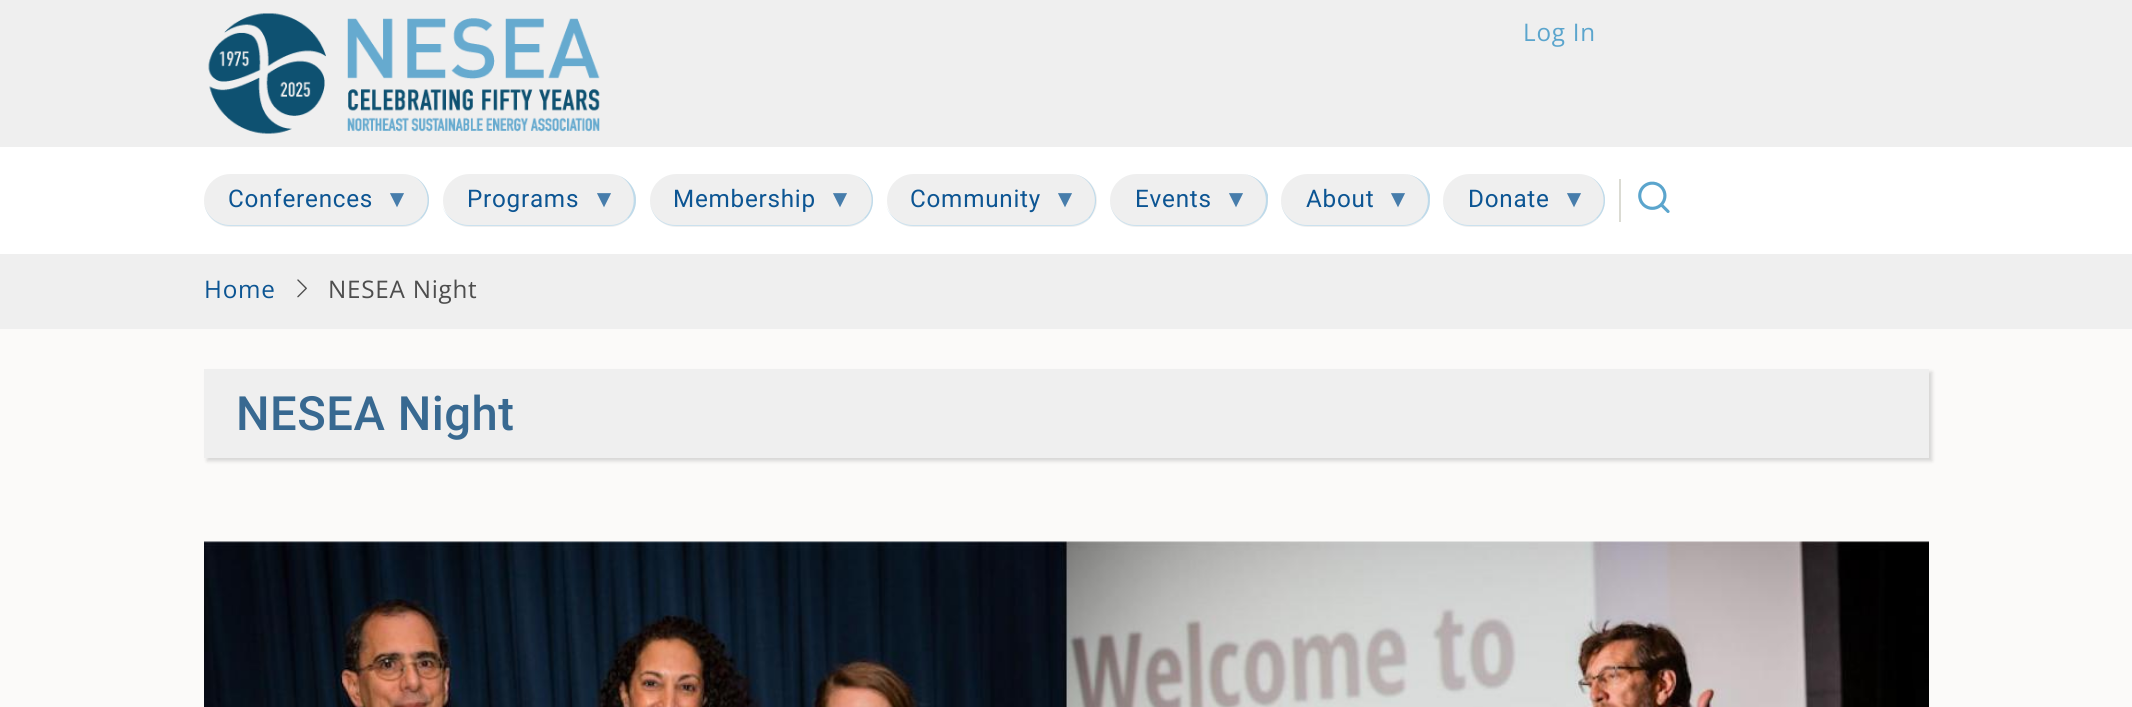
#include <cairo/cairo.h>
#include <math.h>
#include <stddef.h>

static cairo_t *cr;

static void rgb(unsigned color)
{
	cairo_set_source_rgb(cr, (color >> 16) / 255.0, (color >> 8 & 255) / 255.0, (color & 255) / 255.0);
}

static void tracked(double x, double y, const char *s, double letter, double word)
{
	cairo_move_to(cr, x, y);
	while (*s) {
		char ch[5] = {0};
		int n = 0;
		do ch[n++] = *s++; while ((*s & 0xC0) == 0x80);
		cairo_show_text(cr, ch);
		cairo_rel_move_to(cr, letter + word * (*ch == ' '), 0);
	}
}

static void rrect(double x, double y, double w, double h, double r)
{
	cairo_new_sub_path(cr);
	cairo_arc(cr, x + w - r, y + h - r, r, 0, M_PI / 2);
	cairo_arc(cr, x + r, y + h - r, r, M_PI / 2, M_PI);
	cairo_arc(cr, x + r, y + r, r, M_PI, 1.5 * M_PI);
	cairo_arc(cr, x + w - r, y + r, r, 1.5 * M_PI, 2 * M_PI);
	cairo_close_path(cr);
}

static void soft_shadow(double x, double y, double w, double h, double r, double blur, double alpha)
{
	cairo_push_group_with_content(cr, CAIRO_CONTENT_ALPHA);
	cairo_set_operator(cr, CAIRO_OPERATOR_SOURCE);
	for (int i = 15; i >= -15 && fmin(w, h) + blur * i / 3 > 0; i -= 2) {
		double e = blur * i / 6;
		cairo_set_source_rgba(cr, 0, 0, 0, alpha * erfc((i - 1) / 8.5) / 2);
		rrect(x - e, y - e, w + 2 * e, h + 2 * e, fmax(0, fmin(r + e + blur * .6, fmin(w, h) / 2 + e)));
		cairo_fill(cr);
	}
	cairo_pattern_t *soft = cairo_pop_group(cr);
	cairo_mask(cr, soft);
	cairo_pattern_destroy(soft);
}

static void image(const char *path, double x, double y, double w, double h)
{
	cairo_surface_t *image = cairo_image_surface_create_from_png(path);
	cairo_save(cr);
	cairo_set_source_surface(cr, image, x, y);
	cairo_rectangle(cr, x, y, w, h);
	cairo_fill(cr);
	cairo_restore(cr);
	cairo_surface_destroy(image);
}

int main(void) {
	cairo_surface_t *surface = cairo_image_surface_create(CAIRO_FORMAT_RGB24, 2132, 707);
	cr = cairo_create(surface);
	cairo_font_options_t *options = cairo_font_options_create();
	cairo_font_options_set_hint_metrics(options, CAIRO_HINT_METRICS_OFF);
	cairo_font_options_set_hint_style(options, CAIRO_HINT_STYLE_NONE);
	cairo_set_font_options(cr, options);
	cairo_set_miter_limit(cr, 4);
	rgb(0xfbfaf9);
	cairo_paint(cr);
	rgb(0xefefef);
	cairo_rectangle(cr, 0, 0, 2132, 147);
	cairo_fill(cr);
	image("img/1.png", 208, 13, 392, 121);
	rgb(0xffffff);
	cairo_rectangle(cr, 0, 147, 2132, 107);
	cairo_fill(cr);
	rgb(0xefefef);
	rrect(204, 174, 225, 53, 26.5);
	cairo_fill(cr);
	rgb(0xbedaea);
	cairo_new_path(cr);
	cairo_move_to(cr, 429, 200);
	cairo_curve_to(cr, 429, 186, 417, 174, 403, 174);
	cairo_curve_to(cr, 425, 174, 436, 203, 420, 218);
	cairo_line_to(cr, 421, 219);
	cairo_curve_to(cr, 426, 214, 429, 208, 429, 200);
	cairo_close_path(cr);
	cairo_fill(cr);
	rgb(0xcbe1ee);
	cairo_new_path(cr);
	cairo_move_to(cr, 204, 200);
	cairo_curve_to(cr, 204, 214, 216, 225, 230, 225);
	cairo_line_to(cr, 403, 225);
	cairo_curve_to(cr, 409, 225, 416, 222, 420, 218);
	cairo_line_to(cr, 421, 219);
	cairo_curve_to(cr, 416, 223, 410, 226, 403, 226);
	cairo_line_to(cr, 230, 226);
	cairo_curve_to(cr, 216, 226, 204, 215, 204, 200);
	cairo_close_path(cr);
	cairo_fill(cr);
	rgb(0xefefef);
	rrect(443, 174, 193, 53, 26.5);
	cairo_fill(cr);
	rgb(0xbedaea);
	cairo_new_path(cr);
	cairo_move_to(cr, 636, 200);
	cairo_curve_to(cr, 636, 186, 624, 174, 610, 174);
	cairo_curve_to(cr, 632, 174, 641, 203, 627, 218);
	cairo_line_to(cr, 628, 219);
	cairo_curve_to(cr, 633, 214, 636, 208, 636, 200);
	cairo_close_path(cr);
	cairo_fill(cr);
	rgb(0xcbe1ee);
	cairo_new_path(cr);
	cairo_move_to(cr, 442, 205);
	cairo_curve_to(cr, 445, 216, 456, 225, 469, 225);
	cairo_line_to(cr, 610, 225);
	cairo_curve_to(cr, 617, 225, 623, 222, 627, 218);
	cairo_line_to(cr, 628, 219);
	cairo_curve_to(cr, 623, 223, 617, 226, 610, 226);
	cairo_line_to(cr, 469, 226);
	cairo_curve_to(cr, 456, 226, 445, 217, 442, 205);
	cairo_close_path(cr);
	cairo_fill(cr);
	rgb(0xefefef);
	rrect(650, 174, 223, 53, 26.5);
	cairo_fill(cr);
	rgb(0xbedaea);
	cairo_new_path(cr);
	cairo_move_to(cr, 873, 200);
	cairo_curve_to(cr, 873, 186, 861, 174, 847, 174);
	cairo_curve_to(cr, 869, 174, 880, 203, 864, 218);
	cairo_line_to(cr, 865, 219);
	cairo_curve_to(cr, 870, 214, 873, 208, 873, 200);
	cairo_close_path(cr);
	cairo_fill(cr);
	rgb(0xcbe1ee);
	cairo_new_path(cr);
	cairo_move_to(cr, 650, 200);
	cairo_curve_to(cr, 650, 214, 661, 225, 676, 225);
	cairo_line_to(cr, 847, 225);
	cairo_curve_to(cr, 853, 225, 860, 222, 864, 218);
	cairo_line_to(cr, 865, 219);
	cairo_curve_to(cr, 860, 223, 854, 226, 847, 226);
	cairo_line_to(cr, 676, 226);
	cairo_curve_to(cr, 661, 226, 650, 215, 650, 200);
	cairo_close_path(cr);
	cairo_fill(cr);
	rgb(0xefefef);
	rrect(887, 174, 210, 53, 26.5);
	cairo_fill(cr);
	rgb(0xbedaea);
	cairo_new_path(cr);
	cairo_move_to(cr, 1096, 200);
	cairo_curve_to(cr, 1096, 186, 1085, 174, 1070, 174);
	cairo_curve_to(cr, 1092, 174, 1103, 202, 1088, 218);
	cairo_line_to(cr, 1089, 219);
	cairo_curve_to(cr, 1093, 214, 1096, 208, 1096, 200);
	cairo_close_path(cr);
	cairo_fill(cr);
	rgb(0xcbe1ee);
	cairo_new_path(cr);
	cairo_move_to(cr, 886, 205);
	cairo_curve_to(cr, 889, 216, 900, 225, 913, 225);
	cairo_line_to(cr, 1070, 225);
	cairo_curve_to(cr, 1077, 225, 1083, 222, 1088, 218);
	cairo_line_to(cr, 1089, 219);
	cairo_curve_to(cr, 1084, 223, 1078, 226, 1070, 226);
	cairo_line_to(cr, 913, 226);
	cairo_curve_to(cr, 900, 226, 889, 217, 886, 205);
	cairo_close_path(cr);
	cairo_fill(cr);
	rgb(0xefefef);
	rrect(1110, 174, 158, 53, 26.5);
	cairo_fill(cr);
	rgb(0xbedaea);
	cairo_new_path(cr);
	cairo_move_to(cr, 1268, 195);
	cairo_curve_to(cr, 1265, 183, 1254, 174, 1241, 174);
	cairo_curve_to(cr, 1263, 174, 1274, 202, 1259, 218);
	cairo_line_to(cr, 1260, 219);
	cairo_curve_to(cr, 1268, 211, 1268, 205, 1268, 195);
	cairo_close_path(cr);
	cairo_fill(cr);
	rgb(0xcbe1ee);
	cairo_new_path(cr);
	cairo_move_to(cr, 1260, 219);
	cairo_curve_to(cr, 1255, 223, 1248, 226, 1241, 226);
	cairo_line_to(cr, 1136, 226);
	cairo_curve_to(cr, 1122, 226, 1110, 215, 1110, 200);
	cairo_curve_to(cr, 1110, 214, 1122, 225, 1136, 225);
	cairo_line_to(cr, 1241, 225);
	cairo_curve_to(cr, 1248, 225, 1254, 222, 1259, 218);
	cairo_close_path(cr);
	cairo_fill(cr);
	rgb(0xefefef);
	rrect(1281, 174, 149, 53, 26.5);
	cairo_fill(cr);
	rgb(0xbedaea);
	cairo_new_path(cr);
	cairo_move_to(cr, 1430, 195);
	cairo_curve_to(cr, 1427, 183, 1416, 174, 1403, 174);
	cairo_curve_to(cr, 1425, 174, 1436, 202, 1421, 218);
	cairo_line_to(cr, 1422, 219);
	cairo_curve_to(cr, 1430, 211, 1430, 205, 1430, 195);
	cairo_close_path(cr);
	cairo_fill(cr);
	rgb(0xcbe1ee);
	cairo_new_path(cr);
	cairo_move_to(cr, 1422, 219);
	cairo_curve_to(cr, 1417, 223, 1410, 226, 1403, 226);
	cairo_line_to(cr, 1307, 226);
	cairo_curve_to(cr, 1293, 226, 1281, 215, 1281, 200);
	cairo_curve_to(cr, 1281, 214, 1293, 225, 1307, 225);
	cairo_line_to(cr, 1403, 225);
	cairo_curve_to(cr, 1410, 225, 1416, 222, 1421, 218);
	cairo_close_path(cr);
	cairo_fill(cr);
	rgb(0xefefef);
	rrect(1443, 174, 162, 53, 26.5);
	cairo_fill(cr);
	rgb(0xbedaea);
	cairo_new_path(cr);
	cairo_move_to(cr, 1605, 200);
	cairo_curve_to(cr, 1605, 186, 1593, 174, 1579, 174);
	cairo_curve_to(cr, 1601, 174, 1612, 203, 1596, 218);
	cairo_line_to(cr, 1597, 219);
	cairo_curve_to(cr, 1602, 214, 1605, 208, 1605, 200);
	cairo_close_path(cr);
	cairo_fill(cr);
	rgb(0xcbe1ee);
	cairo_new_path(cr);
	cairo_move_to(cr, 1597, 219);
	cairo_curve_to(cr, 1592, 223, 1586, 226, 1579, 226);
	cairo_line_to(cr, 1469, 226);
	cairo_curve_to(cr, 1455, 226, 1443, 215, 1443, 200);
	cairo_curve_to(cr, 1443, 214, 1455, 225, 1469, 225);
	cairo_line_to(cr, 1579, 225);
	cairo_curve_to(cr, 1585, 225, 1592, 222, 1596, 218);
	cairo_close_path(cr);
	cairo_fill(cr);
	rgb(0xdbdbd3);
	cairo_rectangle(cr, 1619, 179, 2, 43);
	cairo_fill(cr);
	image("img/2.png", 1638, 181, 32, 32);
	rgb(0xefefef);
	cairo_rectangle(cr, 0, 254, 2132, 75);
	cairo_fill(cr);
	image("img/3.png", 297, 279, 10, 19);
	rgb(0x000000);
	soft_shadow(207, 372, 1725, 89, 0, 2, 0.15);
	rgb(0xefefef);
	cairo_rectangle(cr, 204, 369, 1725, 89);
	cairo_fill(cr);
	image("img/4.png", 204, 541, 1725, 166);
	cairo_select_font_face(cr, "Open Sans", CAIRO_FONT_SLANT_NORMAL, CAIRO_FONT_WEIGHT_NORMAL);
	cairo_set_font_size(cr, 24.25);
	rgb(0x5ba5cd);
	tracked(1523, 41, "Log In", 0.75, 0);
	cairo_select_font_face(cr, "Roboto", CAIRO_FONT_SLANT_NORMAL, CAIRO_FONT_WEIGHT_NORMAL);
	rgb(0x0c5593);
	tracked(228, 207, "Conferences", 0.75, 0);
	cairo_select_font_face(cr, "Liberation Sans", CAIRO_FONT_SLANT_NORMAL, CAIRO_FONT_WEIGHT_NORMAL);
	rgb(0x477dab);
	tracked(385, 207, "▼", 0.75, 0);
	cairo_select_font_face(cr, "Roboto", CAIRO_FONT_SLANT_NORMAL, CAIRO_FONT_WEIGHT_NORMAL);
	rgb(0x0c5593);
	tracked(467, 207, "Programs", 0.75, 0);
	cairo_select_font_face(cr, "Liberation Sans", CAIRO_FONT_SLANT_NORMAL, CAIRO_FONT_WEIGHT_NORMAL);
	rgb(0x477dab);
	tracked(592, 207, "▼", 0.75, 0);
	cairo_select_font_face(cr, "Roboto", CAIRO_FONT_SLANT_NORMAL, CAIRO_FONT_WEIGHT_NORMAL);
	rgb(0x0c5593);
	tracked(673, 207, "Membership", 0.75, 0);
	cairo_select_font_face(cr, "Liberation Sans", CAIRO_FONT_SLANT_NORMAL, CAIRO_FONT_WEIGHT_NORMAL);
	rgb(0x477dab);
	tracked(828, 207, "▼", 0.75, 0);
	cairo_select_font_face(cr, "Roboto", CAIRO_FONT_SLANT_NORMAL, CAIRO_FONT_WEIGHT_NORMAL);
	rgb(0x0c5593);
	tracked(910, 207, "Community", 0.75, 0);
	cairo_select_font_face(cr, "Liberation Sans", CAIRO_FONT_SLANT_NORMAL, CAIRO_FONT_WEIGHT_NORMAL);
	rgb(0x477dab);
	tracked(1053, 207, "▼", 0.75, 0);
	cairo_select_font_face(cr, "Roboto", CAIRO_FONT_SLANT_NORMAL, CAIRO_FONT_WEIGHT_NORMAL);
	rgb(0x0c5593);
	tracked(1135, 207, "Events", 0.75, 0);
	cairo_select_font_face(cr, "Liberation Sans", CAIRO_FONT_SLANT_NORMAL, CAIRO_FONT_WEIGHT_NORMAL);
	rgb(0x477dab);
	tracked(1224, 207, "▼", 0.75, 0);
	cairo_select_font_face(cr, "Roboto", CAIRO_FONT_SLANT_NORMAL, CAIRO_FONT_WEIGHT_NORMAL);
	rgb(0x0c5593);
	tracked(1306, 207, "About", 0.75, 0);
	cairo_select_font_face(cr, "Liberation Sans", CAIRO_FONT_SLANT_NORMAL, CAIRO_FONT_WEIGHT_NORMAL);
	rgb(0x477dab);
	tracked(1386, 207, "▼", 0.75, 0);
	cairo_select_font_face(cr, "Roboto", CAIRO_FONT_SLANT_NORMAL, CAIRO_FONT_WEIGHT_NORMAL);
	rgb(0x0c5593);
	tracked(1468, 207, "Donate", 0.75, 0);
	cairo_select_font_face(cr, "Liberation Sans", CAIRO_FONT_SLANT_NORMAL, CAIRO_FONT_WEIGHT_NORMAL);
	rgb(0x477dab);
	tracked(1562, 207, "▼", 0.75, 0);
	cairo_select_font_face(cr, "Open Sans", CAIRO_FONT_SLANT_NORMAL, CAIRO_FONT_WEIGHT_NORMAL);
	rgb(0x0c5593);
	tracked(204, 298, "Home", 0.75, 0);
	rgb(0x4d4d4d);
	tracked(328, 298, "NESEA Night", 0.75, 0);
	cairo_select_font_face(cr, "Roboto Medium", CAIRO_FONT_SLANT_NORMAL, CAIRO_FONT_WEIGHT_NORMAL);
	cairo_set_font_size(cr, 47.25);
	rgb(0x386991);
	tracked(236, 430, "NESEA Night", 0.5, 0);
	cairo_surface_write_to_png(surface, "page.png");
	cairo_font_options_destroy(options);
	cairo_destroy(cr);
	cairo_surface_destroy(surface);
	return 0;
}
